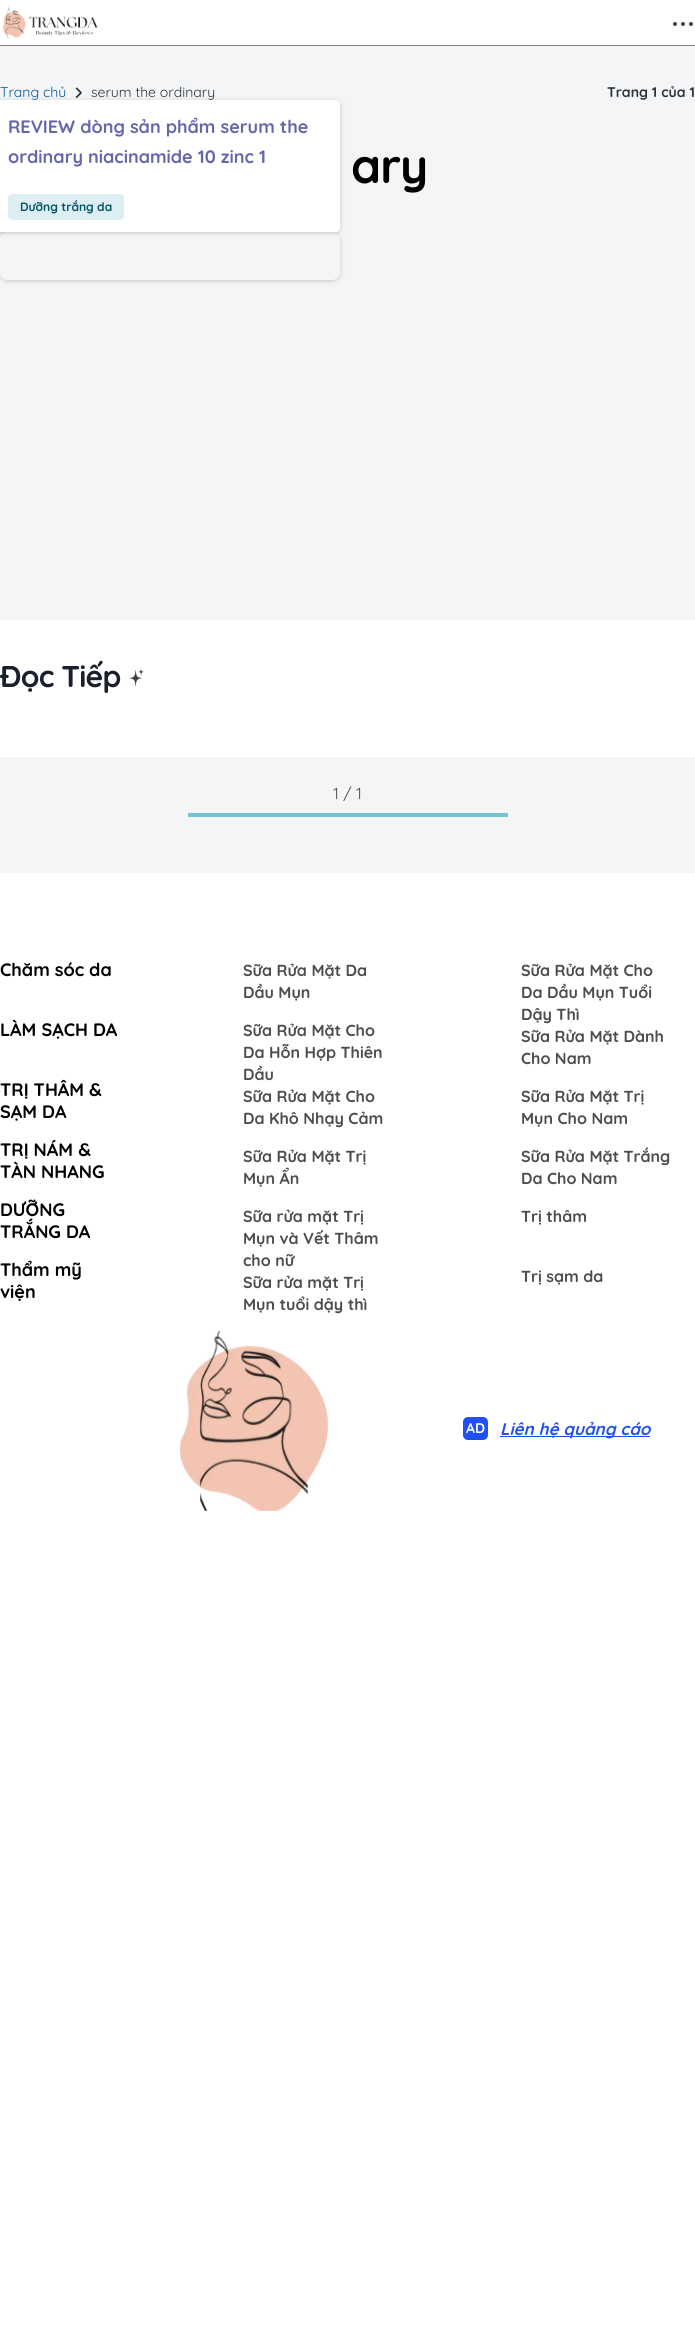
#include <cairo/cairo.h>
#include <math.h>
#include <stddef.h>

typedef struct { double x, y; const char *s; } line_t;
static cairo_t *cr;

static void rgb(unsigned color)
{
	cairo_set_source_rgb(cr, (color >> 16) / 255.0, (color >> 8 & 255) / 255.0, (color & 255) / 255.0);
}

static void tracked(double x, double y, const char *s, double letter, double word)
{
	cairo_move_to(cr, x, y);
	while (*s) {
		char ch[5] = {0};
		int n = 0;
		do ch[n++] = *s++; while ((*s & 0xC0) == 0x80);
		cairo_show_text(cr, ch);
		cairo_rel_move_to(cr, letter + word * (*ch == ' '), 0);
	}
}

static void rrect(double x, double y, double w, double h, double r)
{
	cairo_new_sub_path(cr);
	cairo_arc(cr, x + w - r, y + h - r, r, 0, M_PI / 2);
	cairo_arc(cr, x + r, y + h - r, r, M_PI / 2, M_PI);
	cairo_arc(cr, x + r, y + r, r, M_PI, 1.5 * M_PI);
	cairo_arc(cr, x + w - r, y + r, r, 1.5 * M_PI, 2 * M_PI);
	cairo_close_path(cr);
}

static void soft_shadow(double x, double y, double w, double h, double r, double blur, double alpha)
{
	cairo_push_group_with_content(cr, CAIRO_CONTENT_ALPHA);
	cairo_set_operator(cr, CAIRO_OPERATOR_SOURCE);
	for (int i = 15; i >= -15 && fmin(w, h) + blur * i / 3 > 0; i -= 2) {
		double e = blur * i / 6;
		cairo_set_source_rgba(cr, 0, 0, 0, alpha * erfc((i - 1) / 8.5) / 2);
		rrect(x - e, y - e, w + 2 * e, h + 2 * e, fmax(0, fmin(r + e + blur * .6, fmin(w, h) / 2 + e)));
		cairo_fill(cr);
	}
	cairo_pattern_t *soft = cairo_pop_group(cr);
	cairo_mask(cr, soft);
	cairo_pattern_destroy(soft);
}

static void image(const char *path, double x, double y, double w, double h)
{
	cairo_surface_t *image = cairo_image_surface_create_from_png(path);
	cairo_save(cr);
	cairo_set_source_surface(cr, image, x, y);
	cairo_rectangle(cr, x, y, w, h);
	cairo_fill(cr);
	cairo_restore(cr);
	cairo_surface_destroy(image);
}

int main(void) {
	cairo_surface_t *surface = cairo_image_surface_create(CAIRO_FORMAT_RGB24, 695, 2342);
	cr = cairo_create(surface);
	cairo_font_options_t *options = cairo_font_options_create();
	cairo_font_options_set_hint_metrics(options, CAIRO_HINT_METRICS_OFF);
	cairo_font_options_set_hint_style(options, CAIRO_HINT_STYLE_NONE);
	cairo_set_font_options(cr, options);
	cairo_set_miter_limit(cr, 4);
	rgb(0xffffff);
	cairo_paint(cr);
	rgb(0x828282);
	cairo_rectangle(cr, 0, 45, 695, 1);
	cairo_fill(cr);
	image("img/1.png", 2, 6, 96, 32);
	rgb(0x444444);
	cairo_arc(cr, 675, 24, 2, 0, 2 * M_PI);
	cairo_fill(cr);
	cairo_arc(cr, 683, 24, 2, 0, 2 * M_PI);
	cairo_fill(cr);
	cairo_arc(cr, 691, 24, 2, 0, 2 * M_PI);
	cairo_fill(cr);
	rgb(0xf3f5f7);
	cairo_rectangle(cr, 0, 46, 695, 574);
	cairo_fill(cr);
	image("img/2.png", 75, 87, 7, 11);
	cairo_save(cr);
	cairo_set_fill_rule(cr, CAIRO_FILL_RULE_EVEN_ODD);
	cairo_new_path(cr);
	cairo_move_to(cr, 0, 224);
	cairo_line_to(cr, 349, 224);
	cairo_line_to(cr, 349, 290);
	cairo_line_to(cr, 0, 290);
	cairo_close_path(cr);
	cairo_move_to(cr, 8, 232);
	cairo_line_to(cr, 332, 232);
	cairo_curve_to(cr, 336.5, 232, 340, 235.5, 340, 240);
	cairo_line_to(cr, 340, 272);
	cairo_curve_to(cr, 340, 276.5, 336.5, 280, 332, 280);
	cairo_line_to(cr, 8, 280);
	cairo_curve_to(cr, 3.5, 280, 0, 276.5, 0, 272);
	cairo_line_to(cr, 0, 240);
	cairo_curve_to(cr, 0, 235.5, 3.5, 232, 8, 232);
	cairo_close_path(cr);
	cairo_clip(cr);
	rgb(0x000000);
	soft_shadow(0, 233, 340, 48, 8, 2.5, 0.2);
	cairo_restore(cr);
	rgb(0x000000);
	soft_shadow(-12, 101, 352, 132, 4, 2.5, 0.2);
	rgb(0xffffff);
	rrect(-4, 100, 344, 132, 4);
	cairo_fill(cr);
	rgb(0xddeff4);
	rrect(8, 194, 116, 26, 4);
	cairo_fill(cr);
	image("img/3.png", 129, 668, 15, 19);
	rgb(0xf3f5f7);
	cairo_rectangle(cr, 0, 757, 695, 116);
	cairo_fill(cr);
	rgb(0x6ec6d5);
	cairo_rectangle(cr, 188, 813, 320, 4);
	cairo_fill(cr);
	image("img/4.png", 179, 1331, 150, 180);
	rgb(0x1f4ff5);
	rrect(463, 1417, 25, 23, 5);
	cairo_fill(cr);
	cairo_rectangle(cr, 500, 1436, 150, 1);
	cairo_fill(cr);
	cairo_select_font_face(cr, "Quicksand", CAIRO_FONT_SLANT_NORMAL, CAIRO_FONT_WEIGHT_NORMAL);
	cairo_set_font_size(cr, 14);
	rgb(0x005b99);
	cairo_move_to(cr, 0, 97);
	cairo_show_text(cr, "Trang chủ");
	rgb(0x2e353f);
	cairo_move_to(cr, 91, 97);
	cairo_show_text(cr, "serum the ordinary");
	cairo_select_font_face(cr, "Quicksand", CAIRO_FONT_SLANT_NORMAL, CAIRO_FONT_WEIGHT_BOLD);
	cairo_move_to(cr, 607, 97);
	cairo_show_text(cr, "Trang 1 của 1");
	cairo_set_font_size(cr, 48);
	rgb(0x000000);
	tracked(351, 183, "ary", -1, 0);
	cairo_set_font_size(cr, 18);
	rgb(0x6667ab);
	cairo_move_to(cr, 8, 133);
	cairo_show_text(cr, "REVIEW dòng sản phẩm serum the");
	cairo_move_to(cr, 8, 163);
	cairo_show_text(cr, "ordinary niacinamide 10 zinc 1");
	cairo_set_font_size(cr, 12);
	rgb(0x045465);
	cairo_move_to(cr, 20, 211);
	cairo_show_text(cr, "Dưỡng trắng da");
	cairo_set_font_size(cr, 30);
	rgb(0x1a202c);
	tracked(0, 687, "Đọc Tiếp", -0.75, 0);
	cairo_select_font_face(cr, "Quicksand", CAIRO_FONT_SLANT_NORMAL, CAIRO_FONT_WEIGHT_NORMAL);
	cairo_set_font_size(cr, 16);
	rgb(0x4d4d4e);
	cairo_move_to(cr, 333, 799);
	cairo_show_text(cr, "1 / 1");
	cairo_select_font_face(cr, "Quicksand", CAIRO_FONT_SLANT_NORMAL, CAIRO_FONT_WEIGHT_BOLD);
	cairo_set_font_size(cr, 18);
	rgb(0x000000);
	{
		static const line_t items[] = {
			{0, 976, "Chăm sóc da"},
			{0, 1036, "LÀM SẠCH DA"},
			{0, 1096, "TRỊ THÂM &"},
			{0, 1118, "SẠM DA"},
			{0, 1156, "TRỊ NÁM &"},
			{0, 1178, "TÀN NHANG"},
			{0, 1216, "DƯỠNG"},
			{0, 1238, "TRẮNG DA"},
			{0, 1276, "Thẩm mỹ"},
			{0, 1298, "viện"},
		};
		for (size_t i = 0; i < sizeof items / sizeof *items; i++) {
			cairo_move_to(cr, items[i].x, items[i].y);
			cairo_show_text(cr, items[i].s);
		}
	}
	cairo_set_font_size(cr, 16);
	rgb(0x4d4d4e);
	{
		static const line_t items[] = {
			{243, 976, "Sữa Rửa Mặt Da"},
			{243, 998, "Dầu Mụn"},
			{243, 1036, "Sữa Rửa Mặt Cho"},
			{243, 1058, "Da Hỗn Hợp Thiên"},
			{243, 1080, "Dầu"},
			{243, 1102, "Sữa Rửa Mặt Cho"},
			{243, 1124, "Da Khô Nhạy Cảm"},
			{243, 1162, "Sữa Rửa Mặt Trị"},
			{243, 1184, "Mụn Ẩn"},
			{243, 1222, "Sữa rửa mặt Trị"},
			{243, 1244, "Mụn và Vết Thâm"},
			{243, 1266, "cho nữ"},
			{243, 1288, "Sữa rửa mặt Trị"},
			{243, 1310, "Mụn tuổi dậy thì"},
			{521, 976, "Sữa Rửa Mặt Cho"},
			{521, 998, "Da Dầu Mụn Tuổi"},
			{521, 1020, "Dậy Thì"},
			{521, 1042, "Sữa Rửa Mặt Dành"},
			{521, 1064, "Cho Nam"},
			{521, 1102, "Sữa Rửa Mặt Trị"},
			{521, 1124, "Mụn Cho Nam"},
			{521, 1162, "Sữa Rửa Mặt Trắng"},
			{521, 1184, "Da Cho Nam"},
			{521, 1222, "Trị thâm"},
			{521, 1282, "Trị sạm da"},
		};
		for (size_t i = 0; i < sizeof items / sizeof *items; i++) {
			cairo_move_to(cr, items[i].x, items[i].y);
			cairo_show_text(cr, items[i].s);
		}
	}
	cairo_set_font_size(cr, 14);
	rgb(0xffffff);
	cairo_move_to(cr, 466, 1433);
	cairo_show_text(cr, "AD");
	cairo_select_font_face(cr, "Quicksand", CAIRO_FONT_SLANT_ITALIC, CAIRO_FONT_WEIGHT_BOLD);
	cairo_set_font_size(cr, 17);
	rgb(0x1f4ff5);
	cairo_move_to(cr, 500, 1435);
	cairo_show_text(cr, "Liên hệ quảng cáo");
	cairo_surface_write_to_png(surface, "page.png");
	cairo_font_options_destroy(options);
	cairo_destroy(cr);
	cairo_surface_destroy(surface);
	return 0;
}
